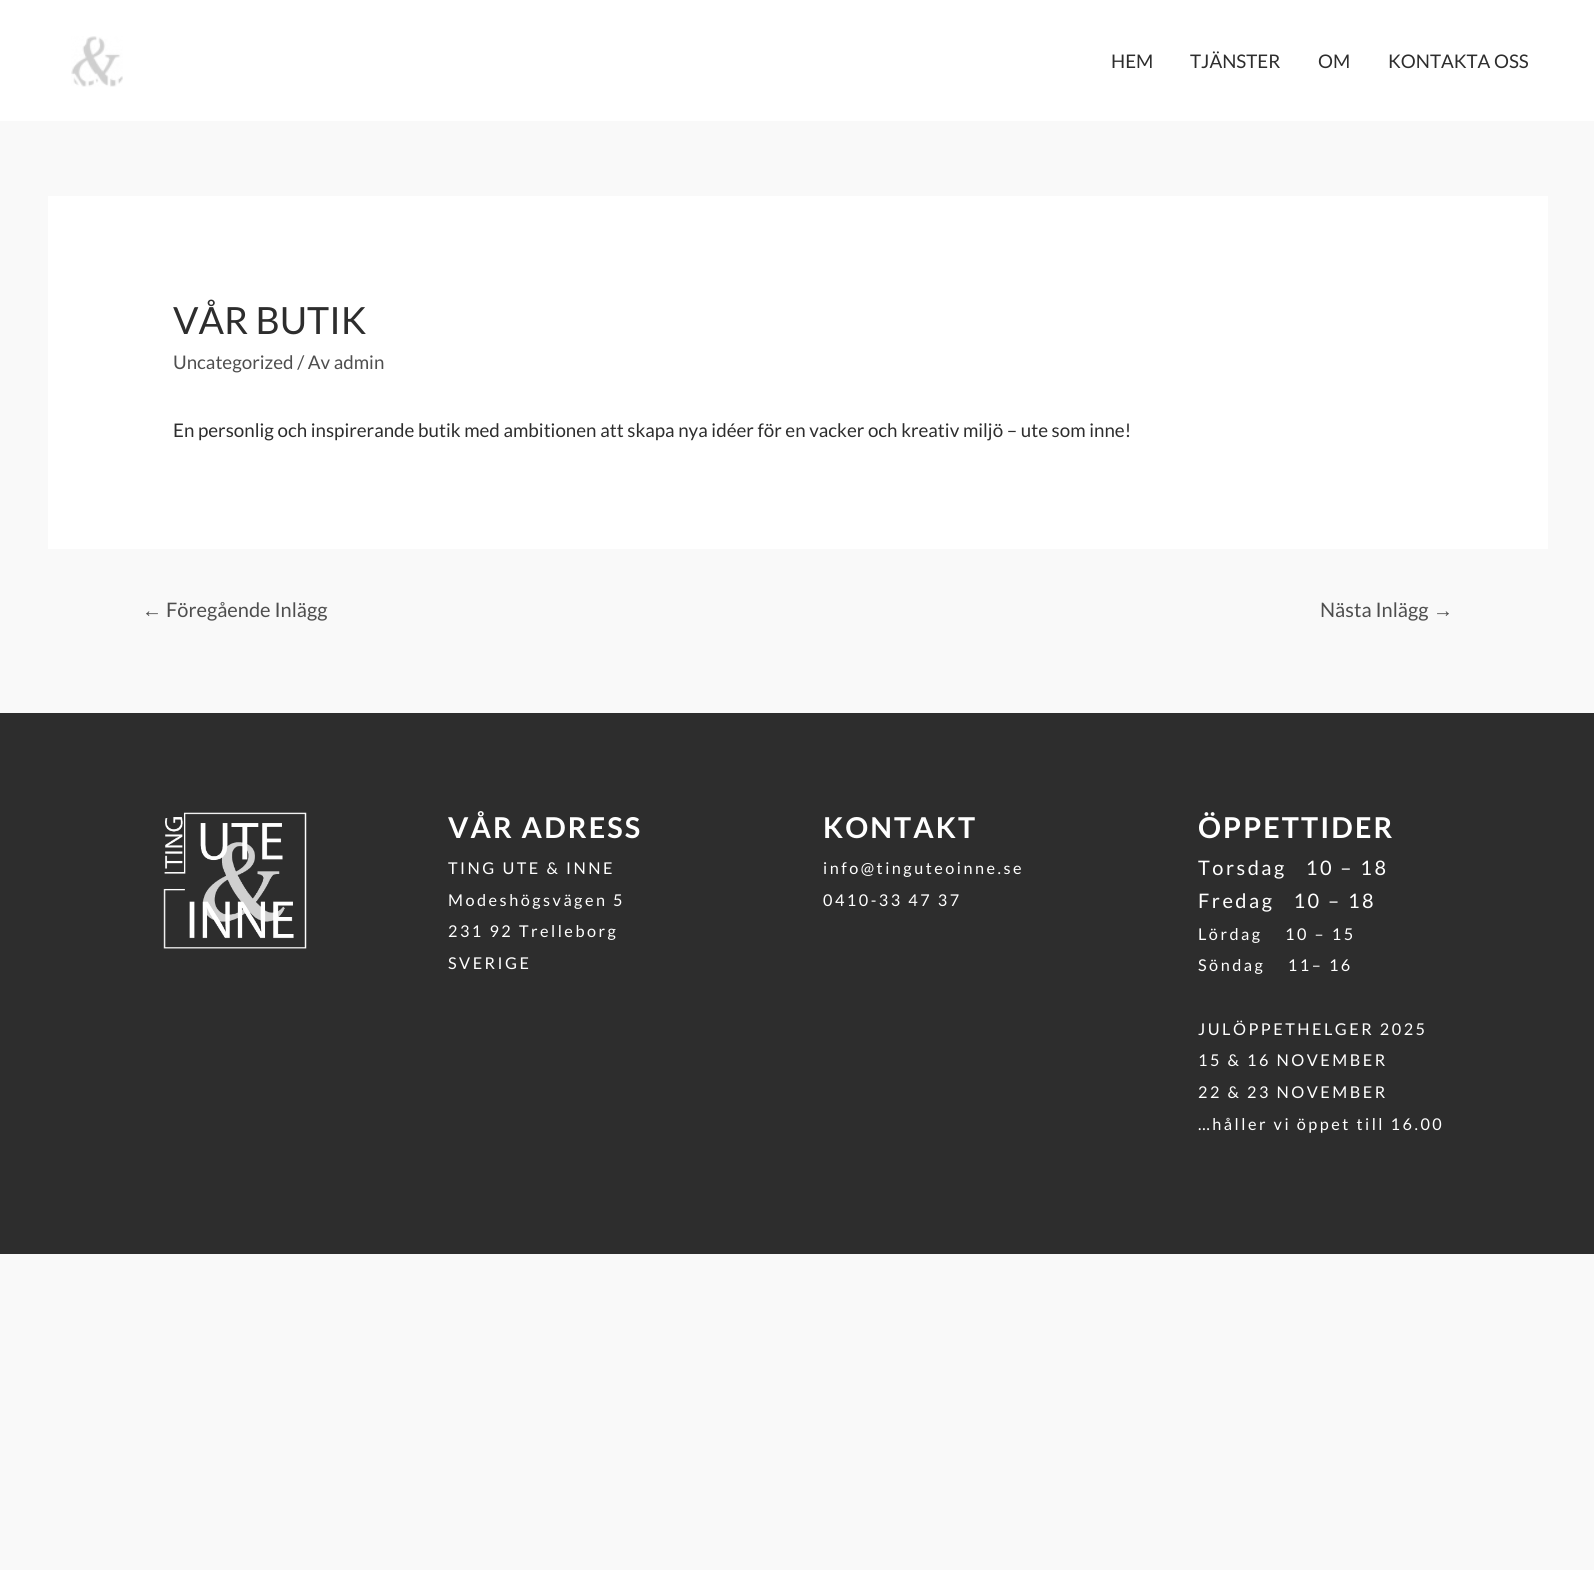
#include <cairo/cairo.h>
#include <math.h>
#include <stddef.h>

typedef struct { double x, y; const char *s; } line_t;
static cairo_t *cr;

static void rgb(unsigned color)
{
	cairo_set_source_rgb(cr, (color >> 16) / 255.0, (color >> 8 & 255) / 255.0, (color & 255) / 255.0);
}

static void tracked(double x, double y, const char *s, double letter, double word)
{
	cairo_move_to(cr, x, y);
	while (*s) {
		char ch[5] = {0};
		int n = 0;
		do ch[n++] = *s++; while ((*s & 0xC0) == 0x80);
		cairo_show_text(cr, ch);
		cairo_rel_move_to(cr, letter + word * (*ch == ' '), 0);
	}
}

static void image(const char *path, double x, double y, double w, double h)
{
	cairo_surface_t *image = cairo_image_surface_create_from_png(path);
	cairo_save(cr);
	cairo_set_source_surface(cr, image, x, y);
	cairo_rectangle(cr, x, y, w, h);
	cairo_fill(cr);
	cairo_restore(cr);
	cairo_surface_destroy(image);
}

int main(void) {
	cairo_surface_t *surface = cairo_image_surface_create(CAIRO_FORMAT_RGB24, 1594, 1570);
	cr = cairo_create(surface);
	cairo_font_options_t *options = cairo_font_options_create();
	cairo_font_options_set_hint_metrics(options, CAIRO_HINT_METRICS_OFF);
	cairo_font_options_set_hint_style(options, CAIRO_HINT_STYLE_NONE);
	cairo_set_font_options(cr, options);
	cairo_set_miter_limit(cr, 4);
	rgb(0xf9f9f9);
	cairo_paint(cr);
	rgb(0xffffff);
	cairo_rectangle(cr, 0, 0, 1594, 121);
	cairo_fill(cr);
	image("img/1.png", 71, 36, 52, 51);
	cairo_rectangle(cr, 48, 196, 1500, 353);
	cairo_fill(cr);
	rgb(0x2d2d2d);
	cairo_rectangle(cr, 0, 713, 1594, 541);
	cairo_fill(cr);
	image("img/2.png", 163, 812, 144, 137);
	cairo_select_font_face(cr, "Lato", CAIRO_FONT_SLANT_NORMAL, CAIRO_FONT_WEIGHT_NORMAL);
	cairo_set_font_size(cr, 18.75);
	{
		static const line_t items[] = {
			{1111, 68, "HEM"},
			{1190, 68, "TJÄNSTER"},
			{1318, 68, "OM"},
			{1388, 68, "KONTAKTA OSS"},
		};
		for (size_t i = 0; i < sizeof items / sizeof *items; i++) {
			cairo_move_to(cr, items[i].x, items[i].y);
			cairo_show_text(cr, items[i].s);
		}
	}
	cairo_set_font_size(cr, 37.5);
	cairo_move_to(cr, 173, 334);
	cairo_show_text(cr, "VÅR BUTIK");
	cairo_set_font_size(cr, 18.75);
	rgb(0x4e4e4e);
	cairo_move_to(cr, 173, 369);
	cairo_show_text(cr, "Uncategorized / Av admin");
	rgb(0x2d2d2d);
	cairo_move_to(cr, 173, 437);
	cairo_show_text(cr, "En personlig och inspirerande butik med ambitionen att skapa nya idéer för en vacker och kreativ miljö – ute som inne!");
	cairo_select_font_face(cr, "Liberation Sans", CAIRO_FONT_SLANT_NORMAL, CAIRO_FONT_WEIGHT_NORMAL);
	cairo_set_font_size(cr, 20);
	rgb(0x4e4e4e);
	cairo_move_to(cr, 142, 617);
	cairo_show_text(cr, "←");
	cairo_select_font_face(cr, "Lato", CAIRO_FONT_SLANT_NORMAL, CAIRO_FONT_WEIGHT_NORMAL);
	cairo_move_to(cr, 166, 617);
	cairo_show_text(cr, "Föregående Inlägg");
	cairo_move_to(cr, 1320, 617);
	cairo_show_text(cr, "Nästa Inlägg");
	cairo_select_font_face(cr, "Liberation Sans", CAIRO_FONT_SLANT_NORMAL, CAIRO_FONT_WEIGHT_NORMAL);
	cairo_move_to(cr, 1433, 617);
	cairo_show_text(cr, "→");
	cairo_select_font_face(cr, "Lato", CAIRO_FONT_SLANT_NORMAL, CAIRO_FONT_WEIGHT_BOLD);
	cairo_set_font_size(cr, 28.75);
	rgb(0xffffff);
	tracked(448, 838, "VÅR ADRESS", 2.1, 0);
	cairo_select_font_face(cr, "Lato", CAIRO_FONT_SLANT_NORMAL, CAIRO_FONT_WEIGHT_NORMAL);
	cairo_set_font_size(cr, 16.25);
	{
		static const line_t items[] = {
			{448, 874, "TING UTE & INNE"},
			{448, 906, "Modeshögsvägen 5"},
			{448, 937, "231 92 Trelleborg"},
			{448, 969, "SVERIGE"},
		};
		for (size_t i = 0; i < sizeof items / sizeof *items; i++) {
			tracked(items[i].x, items[i].y, items[i].s, 2.5, 0);
		}
	}
	cairo_select_font_face(cr, "Lato", CAIRO_FONT_SLANT_NORMAL, CAIRO_FONT_WEIGHT_BOLD);
	cairo_set_font_size(cr, 28.75);
	tracked(823, 838, "KONTAKT", 2.1, 0);
	cairo_select_font_face(cr, "Lato", CAIRO_FONT_SLANT_NORMAL, CAIRO_FONT_WEIGHT_NORMAL);
	cairo_set_font_size(cr, 16.25);
	tracked(823, 874, "info@tinguteoinne.se", 2.5, 0);
	tracked(823, 906, "0410-33 47 37", 2.5, 0);
	cairo_select_font_face(cr, "Lato", CAIRO_FONT_SLANT_NORMAL, CAIRO_FONT_WEIGHT_BOLD);
	cairo_set_font_size(cr, 28.75);
	tracked(1198, 838, "ÖPPETTIDER", 2.1, 0);
	cairo_select_font_face(cr, "Lato", CAIRO_FONT_SLANT_NORMAL, CAIRO_FONT_WEIGHT_NORMAL);
	cairo_set_font_size(cr, 20);
	tracked(1198, 875, "Torsdag   10 – 18", 2.5, 0);
	tracked(1198, 908, "Fredag   10 – 18", 2.5, 0);
	cairo_set_font_size(cr, 16.25);
	{
		static const line_t items[] = {
			{1198, 940, "Lördag    10 – 15"},
			{1198, 971, "Söndag    11– 16"},
			{1198, 1035, "JULÖPPETHELGER 2025"},
			{1198, 1066, "15 & 16 NOVEMBER"},
			{1198, 1098, "22 & 23 NOVEMBER"},
			{1198, 1130, "…håller vi öppet till 16.00"},
		};
		for (size_t i = 0; i < sizeof items / sizeof *items; i++) {
			tracked(items[i].x, items[i].y, items[i].s, 2.5, 0);
		}
	}
	cairo_surface_write_to_png(surface, "page.png");
	cairo_font_options_destroy(options);
	cairo_destroy(cr);
	cairo_surface_destroy(surface);
	return 0;
}
